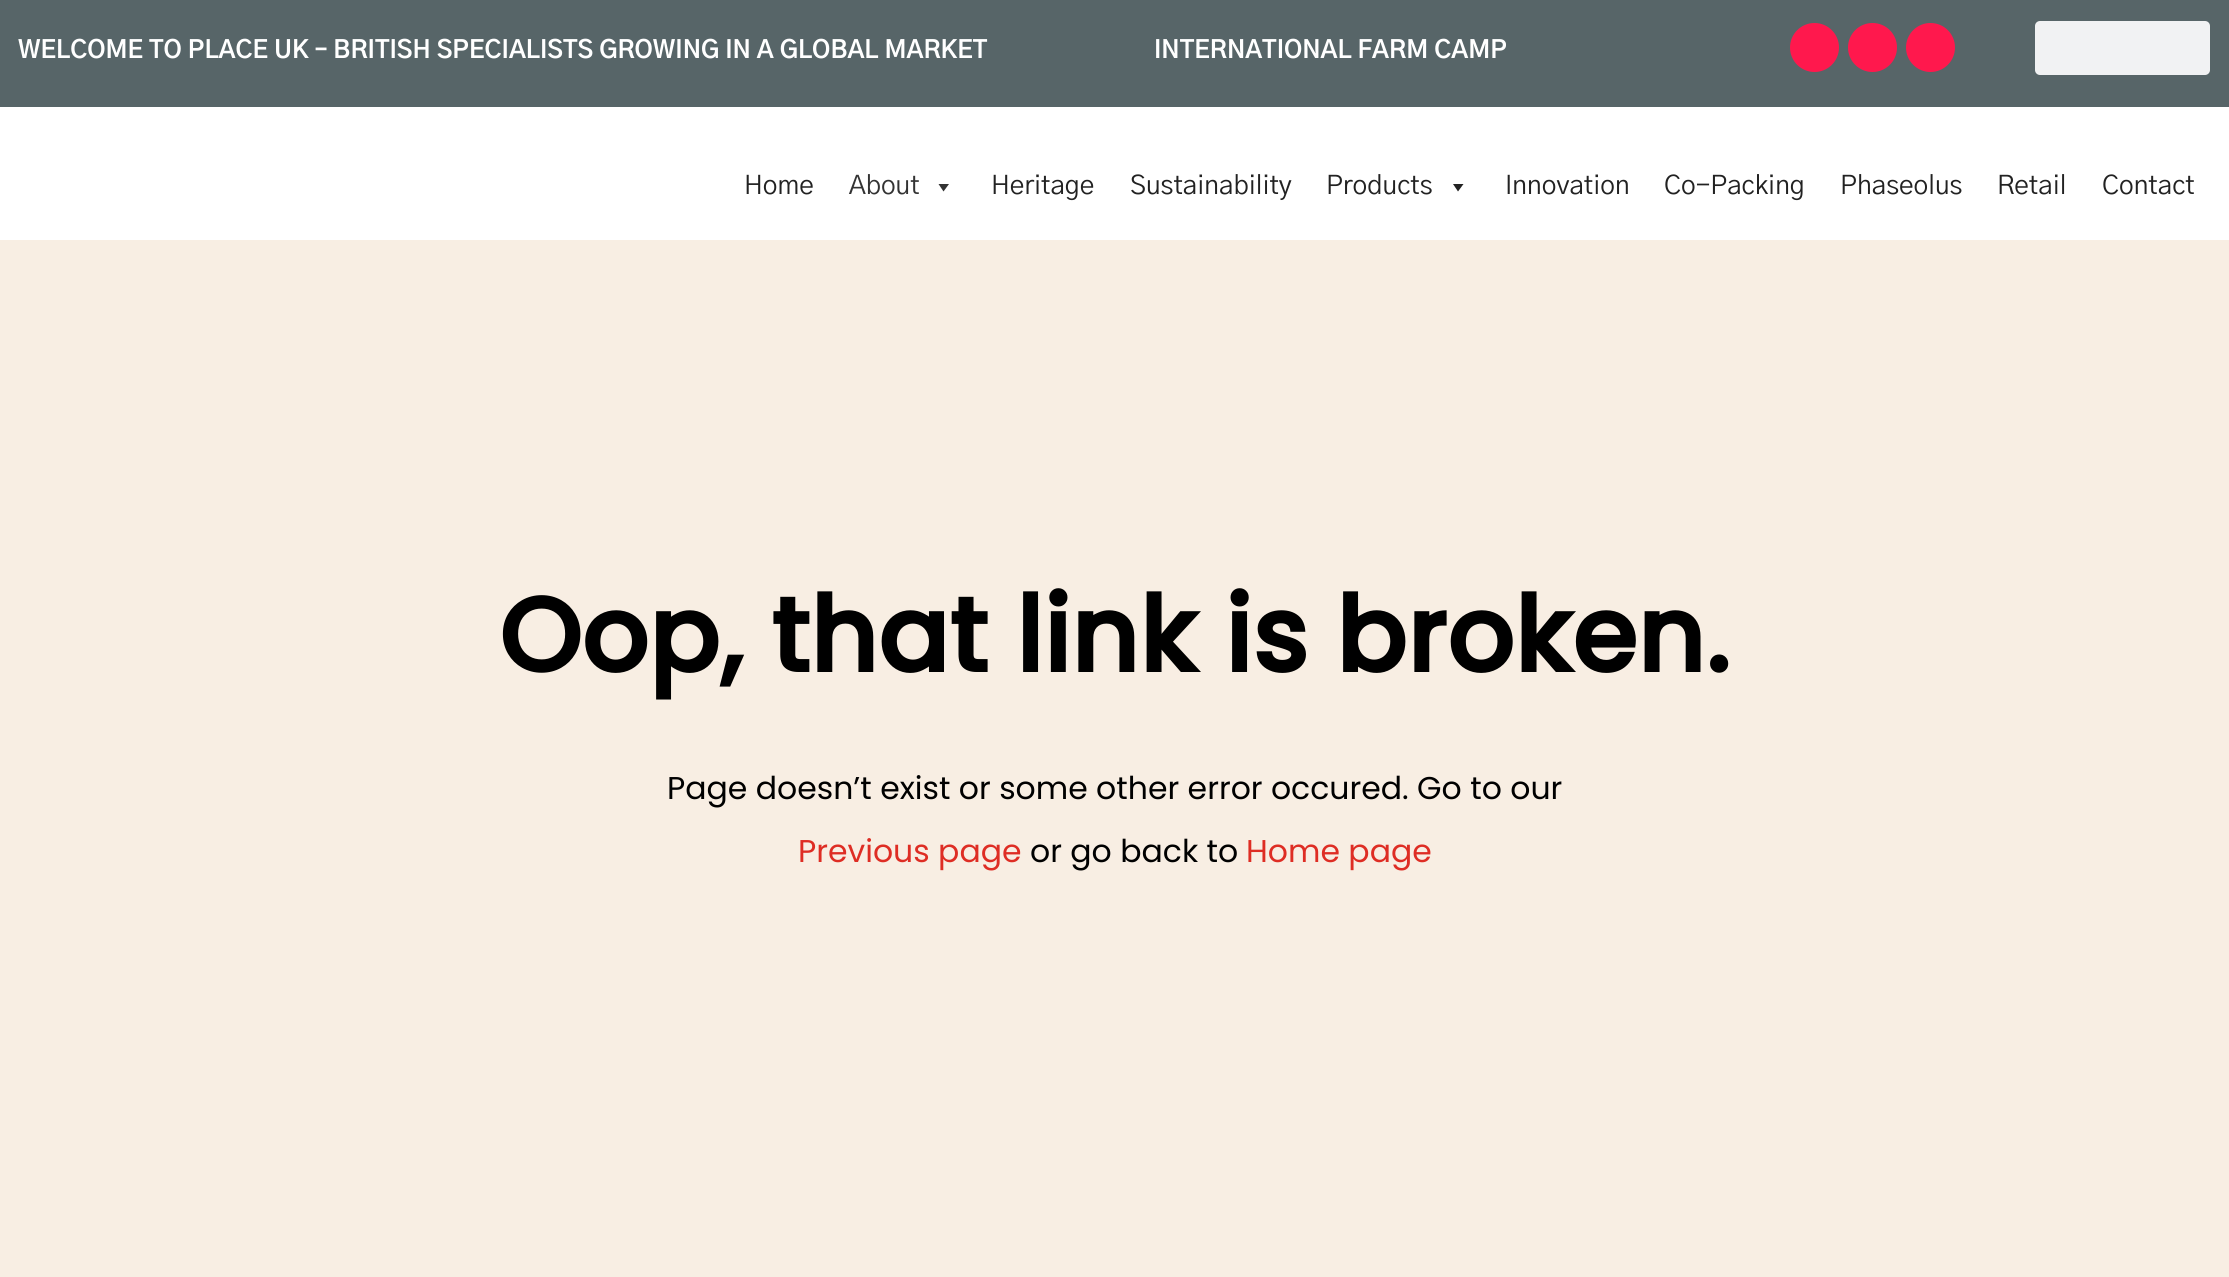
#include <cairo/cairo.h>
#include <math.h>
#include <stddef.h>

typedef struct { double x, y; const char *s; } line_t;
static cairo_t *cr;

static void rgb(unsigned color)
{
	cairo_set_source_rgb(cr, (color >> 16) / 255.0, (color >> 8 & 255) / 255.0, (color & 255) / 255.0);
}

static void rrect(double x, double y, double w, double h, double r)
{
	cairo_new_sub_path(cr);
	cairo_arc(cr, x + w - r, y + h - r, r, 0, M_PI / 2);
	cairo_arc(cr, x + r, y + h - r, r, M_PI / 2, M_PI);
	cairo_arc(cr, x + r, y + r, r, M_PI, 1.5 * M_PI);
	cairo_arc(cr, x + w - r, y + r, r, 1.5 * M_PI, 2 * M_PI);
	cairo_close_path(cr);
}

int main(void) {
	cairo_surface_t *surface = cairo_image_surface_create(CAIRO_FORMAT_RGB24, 2229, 1277);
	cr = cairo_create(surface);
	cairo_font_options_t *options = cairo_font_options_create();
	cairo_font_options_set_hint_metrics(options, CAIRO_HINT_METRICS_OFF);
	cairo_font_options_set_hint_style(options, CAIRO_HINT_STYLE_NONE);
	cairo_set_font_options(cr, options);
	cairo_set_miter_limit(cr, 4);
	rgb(0xffffff);
	cairo_paint(cr);
	rgb(0x576568);
	cairo_rectangle(cr, 0, 0, 2229, 107);
	cairo_fill(cr);
	rgb(0xff184d);
	cairo_arc(cr, 1814.5, 47.5, 24.5, 0, 2 * M_PI);
	cairo_fill(cr);
	cairo_arc(cr, 1872.5, 47.5, 24.5, 0, 2 * M_PI);
	cairo_fill(cr);
	cairo_arc(cr, 1930.5, 47.5, 24.5, 0, 2 * M_PI);
	cairo_fill(cr);
	rgb(0xf1f2f3);
	rrect(2035, 21, 175, 54, 5);
	cairo_fill(cr);
	rgb(0x333333);
	cairo_new_path(cr);
	cairo_move_to(cr, 949, 184);
	cairo_line_to(cr, 943.5, 191.5);
	cairo_line_to(cr, 938.5, 184);
	cairo_close_path(cr);
	cairo_fill(cr);
	rgb(0x222222);
	cairo_new_path(cr);
	cairo_move_to(cr, 1463.5, 184);
	cairo_line_to(cr, 1458, 191.5);
	cairo_line_to(cr, 1453, 184);
	cairo_close_path(cr);
	cairo_fill(cr);
	rgb(0xf8eee3);
	cairo_rectangle(cr, 0, 240, 2229, 1037);
	cairo_fill(cr);
	cairo_select_font_face(cr, "Gothic A1", CAIRO_FONT_SLANT_NORMAL, CAIRO_FONT_WEIGHT_BOLD);
	cairo_set_font_size(cr, 24.5);
	rgb(0xffffff);
	cairo_move_to(cr, 18, 58);
	cairo_show_text(cr, "WELCOME TO PLACE UK – BRITISH SPECIALISTS GROWING IN A GLOBAL MARKET");
	cairo_move_to(cr, 1154, 58);
	cairo_show_text(cr, "INTERNATIONAL FARM CAMP");
	cairo_select_font_face(cr, "Gothic A1", CAIRO_FONT_SLANT_NORMAL, CAIRO_FONT_WEIGHT_NORMAL);
	cairo_set_font_size(cr, 26.25);
	rgb(0x222222);
	cairo_move_to(cr, 744, 194);
	cairo_show_text(cr, "Home");
	rgb(0x333333);
	cairo_move_to(cr, 849, 194);
	cairo_show_text(cr, "About");
	rgb(0x222222);
	{
		static const line_t items[] = {
			{991, 194, "Heritage"},
			{1130, 194, "Sustainability"},
			{1326, 194, "Products"},
			{1505, 194, "Innovation"},
			{1664, 194, "Co-Packing"},
			{1840, 194, "Phaseolus"},
			{1997, 194, "Retail"},
			{2102, 194, "Contact"},
		};
		for (size_t i = 0; i < sizeof items / sizeof *items; i++) {
			cairo_move_to(cr, items[i].x, items[i].y);
			cairo_show_text(cr, items[i].s);
		}
	}
	cairo_select_font_face(cr, "Poppins", CAIRO_FONT_SLANT_NORMAL, CAIRO_FONT_WEIGHT_BOLD);
	cairo_set_font_size(cr, 105);
	rgb(0x000000);
	cairo_move_to(cr, 499, 672);
	cairo_show_text(cr, "Oop, that link is broken.");
	cairo_select_font_face(cr, "Poppins", CAIRO_FONT_SLANT_NORMAL, CAIRO_FONT_WEIGHT_NORMAL);
	cairo_set_font_size(cr, 31.5);
	cairo_move_to(cr, 667, 799);
	cairo_show_text(cr, "Page doesn’t exist or some other error occured. Go to our");
	rgb(0xde2d24);
	cairo_move_to(cr, 798, 862);
	cairo_show_text(cr, "Previous page");
	rgb(0x000000);
	cairo_move_to(cr, 1030, 862);
	cairo_show_text(cr, "or go back to");
	rgb(0xde2d24);
	cairo_move_to(cr, 1246, 862);
	cairo_show_text(cr, "Home page");
	cairo_surface_write_to_png(surface, "page.png");
	cairo_font_options_destroy(options);
	cairo_destroy(cr);
	cairo_surface_destroy(surface);
	return 0;
}
